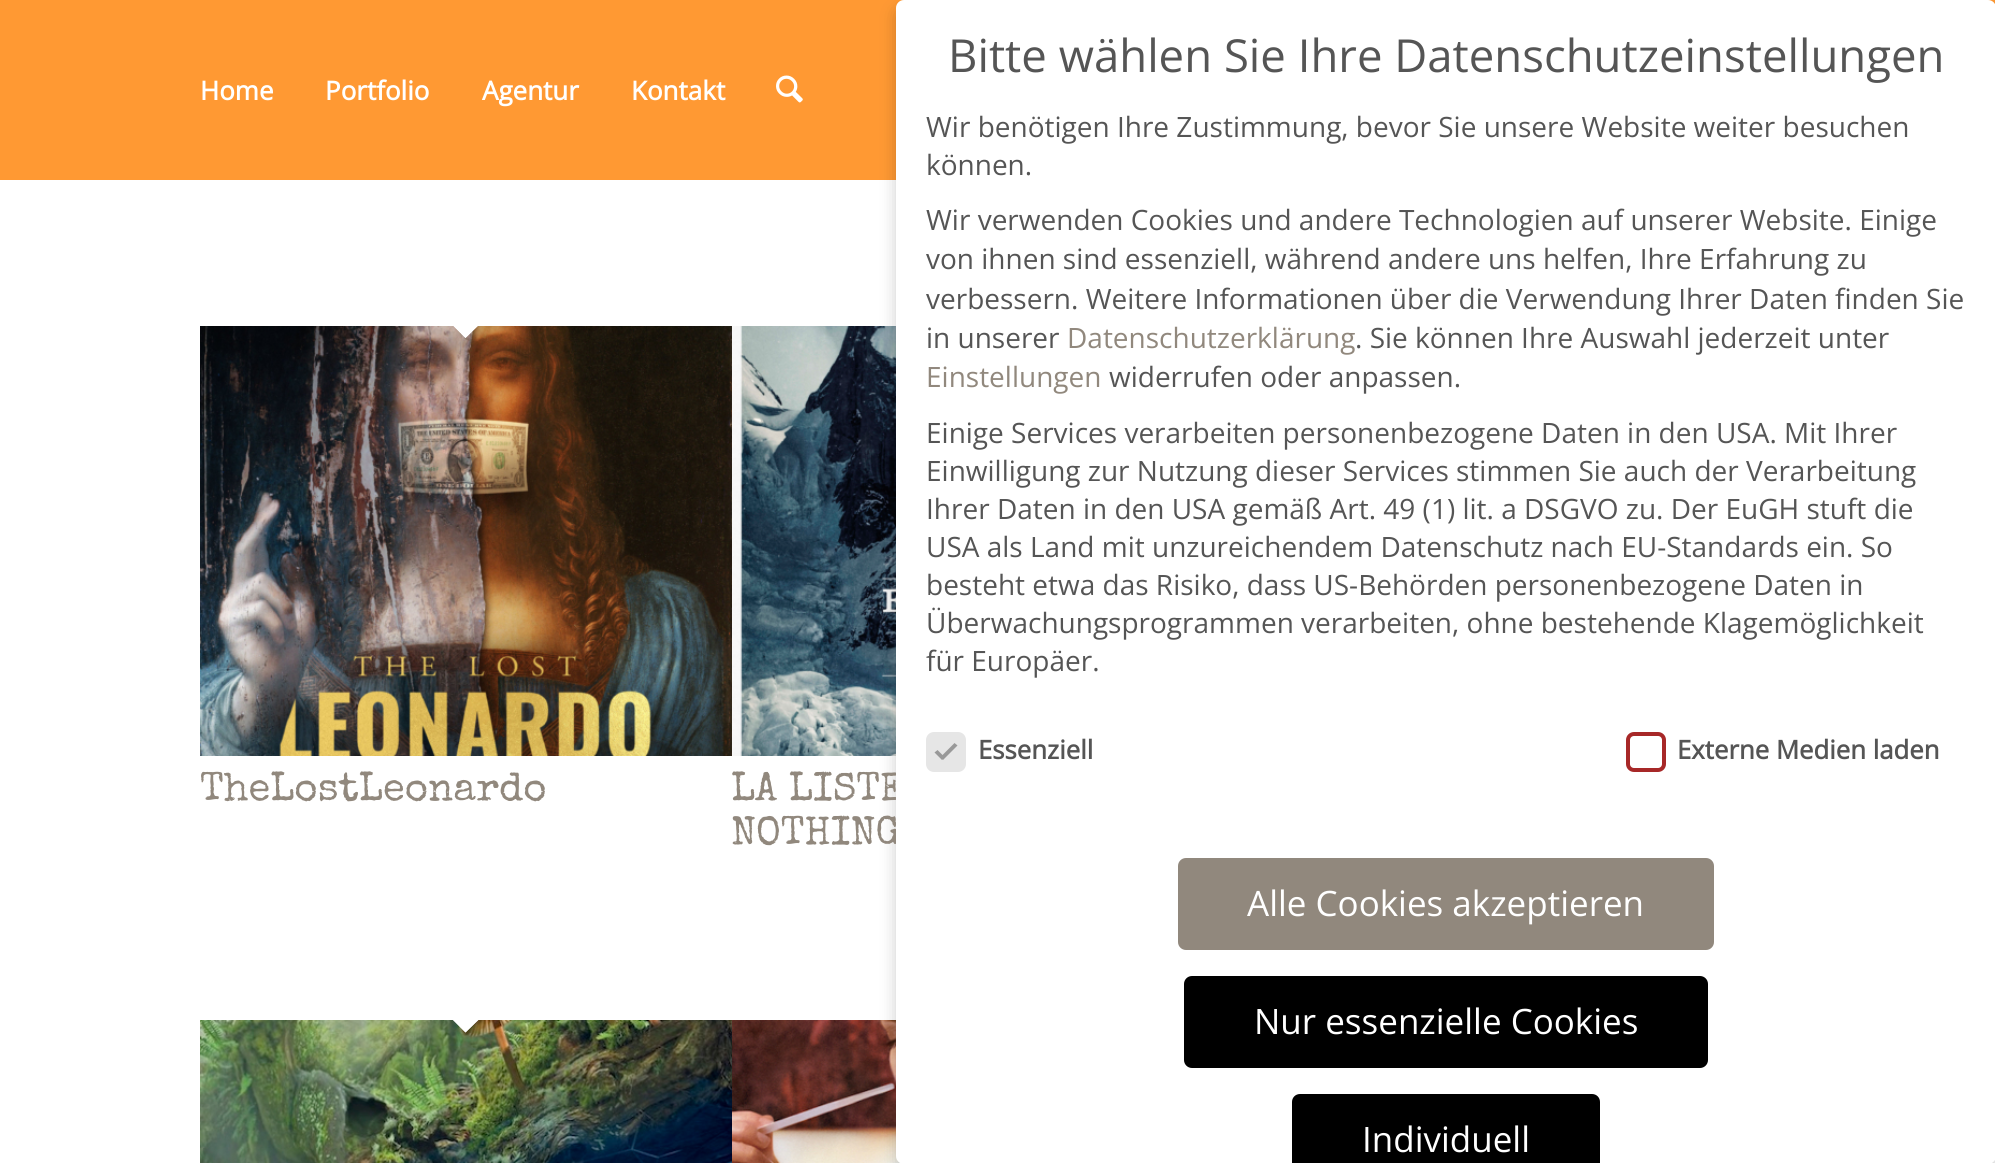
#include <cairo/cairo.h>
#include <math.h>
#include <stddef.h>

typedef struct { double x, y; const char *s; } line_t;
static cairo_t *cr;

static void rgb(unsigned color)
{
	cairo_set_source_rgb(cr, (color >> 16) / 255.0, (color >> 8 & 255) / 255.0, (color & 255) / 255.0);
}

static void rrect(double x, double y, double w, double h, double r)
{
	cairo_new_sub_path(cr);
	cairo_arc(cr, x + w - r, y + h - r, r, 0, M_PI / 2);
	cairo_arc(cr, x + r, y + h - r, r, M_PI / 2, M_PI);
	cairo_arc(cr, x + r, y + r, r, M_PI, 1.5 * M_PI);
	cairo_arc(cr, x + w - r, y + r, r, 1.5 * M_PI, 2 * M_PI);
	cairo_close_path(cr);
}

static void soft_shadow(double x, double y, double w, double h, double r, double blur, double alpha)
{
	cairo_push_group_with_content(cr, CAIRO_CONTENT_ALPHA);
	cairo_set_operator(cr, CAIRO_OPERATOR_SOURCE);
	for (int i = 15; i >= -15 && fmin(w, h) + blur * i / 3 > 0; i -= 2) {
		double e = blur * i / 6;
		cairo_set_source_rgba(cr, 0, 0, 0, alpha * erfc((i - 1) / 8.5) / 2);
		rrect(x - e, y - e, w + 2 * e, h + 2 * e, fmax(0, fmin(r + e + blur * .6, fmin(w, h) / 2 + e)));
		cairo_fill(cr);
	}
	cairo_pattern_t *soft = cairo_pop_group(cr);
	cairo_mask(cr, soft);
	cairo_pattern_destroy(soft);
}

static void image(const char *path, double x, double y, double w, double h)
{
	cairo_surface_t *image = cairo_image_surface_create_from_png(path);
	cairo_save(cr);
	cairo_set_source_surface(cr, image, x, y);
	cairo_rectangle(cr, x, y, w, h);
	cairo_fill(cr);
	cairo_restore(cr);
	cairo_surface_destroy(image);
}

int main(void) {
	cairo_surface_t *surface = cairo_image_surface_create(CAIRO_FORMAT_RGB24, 1995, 1163);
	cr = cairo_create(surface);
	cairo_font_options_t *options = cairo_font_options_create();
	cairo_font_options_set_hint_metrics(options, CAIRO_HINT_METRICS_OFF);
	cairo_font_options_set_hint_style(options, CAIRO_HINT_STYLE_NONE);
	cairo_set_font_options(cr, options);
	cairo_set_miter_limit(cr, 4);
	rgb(0xffffff);
	cairo_paint(cr);
	rgb(0xff9933);
	cairo_rectangle(cr, 0, 0, 1995, 180);
	cairo_fill(cr);
	image("img/1.png", 776, 75, 27, 28);
	image("img/2.png", 200, 326, 532, 430);
	rgb(0xffffff);
	cairo_new_path(cr);
	cairo_move_to(cr, 465.5, 310);
	cairo_line_to(cr, 479.5, 324);
	cairo_line_to(cr, 465.5, 338);
	cairo_line_to(cr, 451.5, 324);
	cairo_close_path(cr);
	cairo_fill(cr);
	cairo_new_path(cr);
	cairo_move_to(cr, 465.5, 311.5);
	cairo_line_to(cr, 478.5, 324);
	cairo_line_to(cr, 465.5, 336.5);
	cairo_line_to(cr, 453, 324);
	cairo_close_path(cr);
	cairo_stroke(cr);
	image("img/3.png", 732, 326, 164, 430);
	image("img/4.png", 200, 1020, 532, 143);
	cairo_new_path(cr);
	cairo_move_to(cr, 465.5, 1004);
	cairo_line_to(cr, 479.5, 1018.5);
	cairo_line_to(cr, 465.5, 1032.5);
	cairo_line_to(cr, 451.5, 1018.5);
	cairo_close_path(cr);
	cairo_fill(cr);
	cairo_new_path(cr);
	cairo_move_to(cr, 465.5, 1005.5);
	cairo_line_to(cr, 478.5, 1018.5);
	cairo_line_to(cr, 465.5, 1031);
	cairo_line_to(cr, 453, 1018.5);
	cairo_close_path(cr);
	cairo_stroke(cr);
	image("img/5.png", 732, 1020, 169, 143);
	rgb(0x000000);
	soft_shadow(896, 8, 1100, 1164, 8, 8, 0.2);
	cairo_select_font_face(cr, "Open Sans", CAIRO_FONT_SLANT_NORMAL, CAIRO_FONT_WEIGHT_BOLD);
	cairo_set_font_size(cr, 26);
	rgb(0xffffff);
	{
		static const line_t items[] = {
			{200, 100, "Home"},
			{325, 100, "Portfolio"},
			{482, 100, "Agentur"},
			{631, 100, "Kontakt"},
		};
		for (size_t i = 0; i < sizeof items / sizeof *items; i++) {
			cairo_move_to(cr, items[i].x, items[i].y);
			cairo_show_text(cr, items[i].s);
		}
	}
	cairo_select_font_face(cr, "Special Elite", CAIRO_FONT_SLANT_NORMAL, CAIRO_FONT_WEIGHT_NORMAL);
	cairo_set_font_size(cr, 40);
	rgb(0x91887d);
	{
		static const line_t items[] = {
			{200, 800, "TheLostLeonardo"},
			{731, 800, "LA LISTE"},
			{731, 844, "NOTHING"},
		};
		for (size_t i = 0; i < sizeof items / sizeof *items; i++) {
			cairo_move_to(cr, items[i].x, items[i].y);
			cairo_show_text(cr, items[i].s);
		}
	}
	rgb(0xffffff);
	rrect(896, 0, 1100, 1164, 8);
	cairo_fill(cr);
	cairo_select_font_face(cr, "Open Sans", CAIRO_FONT_SLANT_NORMAL, CAIRO_FONT_WEIGHT_NORMAL);
	cairo_set_font_size(cr, 45.5);
	rgb(0x555555);
	cairo_move_to(cr, 948, 72);
	cairo_show_text(cr, "Bitte wählen Sie Ihre Datenschutzeinstellungen");
	cairo_set_font_size(cr, 28);
	{
		static const line_t items[] = {
			{926, 137, "Wir benötigen Ihre Zustimmung, bevor Sie unsere Website weiter besuchen"},
			{926, 175, "können."},
			{926, 230, "Wir verwenden Cookies und andere Technologien auf unserer Website. Einige"},
			{926, 269, "von ihnen sind essenziell, während andere uns helfen, Ihre Erfahrung zu"},
			{926, 309, "verbessern. Weitere Informationen über die Verwendung Ihrer Daten finden Sie"},
			{926, 348, "in unserer"},
		};
		for (size_t i = 0; i < sizeof items / sizeof *items; i++) {
			cairo_move_to(cr, items[i].x, items[i].y);
			cairo_show_text(cr, items[i].s);
		}
	}
	rgb(0x91887d);
	cairo_move_to(cr, 1067, 348);
	cairo_show_text(cr, "Datenschutzerklärung");
	rgb(0x555555);
	cairo_move_to(cr, 1355, 348);
	cairo_show_text(cr, ". Sie können Ihre Auswahl jederzeit unter");
	rgb(0x91887d);
	cairo_move_to(cr, 926, 387);
	cairo_show_text(cr, "Einstellungen");
	rgb(0x555555);
	{
		static const line_t items[] = {
			{1109, 387, "widerrufen oder anpassen."},
			{926, 443, "Einige Services verarbeiten personenbezogene Daten in den USA. Mit Ihrer"},
			{926, 481, "Einwilligung zur Nutzung dieser Services stimmen Sie auch der Verarbeitung"},
			{926, 519, "Ihrer Daten in den USA gemäß Art. 49 (1) lit. a DSGVO zu. Der EuGH stuft die"},
			{926, 557, "USA als Land mit unzureichendem Datenschutz nach EU-Standards ein. So"},
			{926, 595, "besteht etwa das Risiko, dass US-Behörden personenbezogene Daten in"},
			{926, 633, "Überwachungsprogrammen verarbeiten, ohne bestehende Klagemöglichkeit"},
			{926, 671, "für Europäer."},
		};
		for (size_t i = 0; i < sizeof items / sizeof *items; i++) {
			cairo_move_to(cr, items[i].x, items[i].y);
			cairo_show_text(cr, items[i].s);
		}
	}
	rgb(0xe6e6e6);
	rrect(928, 734, 36, 36, 6);
	cairo_fill_preserve(cr);
	cairo_set_line_width(cr, 4);
	cairo_stroke(cr);
	rgb(0x999999);
	cairo_new_path(cr);
	cairo_move_to(cr, 954.5, 743);
	cairo_line_to(cr, 957.5, 745.5);
	cairo_line_to(cr, 943, 760);
	cairo_line_to(cr, 940.5, 757);
	cairo_close_path(cr);
	cairo_fill(cr);
	cairo_new_path(cr);
	cairo_move_to(cr, 937.5, 750);
	cairo_line_to(cr, 944.5, 757);
	cairo_line_to(cr, 942, 760);
	cairo_line_to(cr, 934.5, 752.5);
	cairo_close_path(cr);
	cairo_fill(cr);
	cairo_select_font_face(cr, "Open Sans", CAIRO_FONT_SLANT_NORMAL, CAIRO_FONT_WEIGHT_BOLD);
	cairo_set_font_size(cr, 25.75);
	rgb(0x555555);
	cairo_move_to(cr, 978, 759);
	cairo_show_text(cr, "Essenziell");
	rrect(1628, 734, 36, 36, 6);
	rgb(0xa72828);
	cairo_stroke(cr);
	rgb(0x555555);
	cairo_move_to(cr, 1677, 759);
	cairo_show_text(cr, "Externe Medien laden");
	rgb(0x91887d);
	rrect(1178, 858, 536, 92, 8);
	cairo_fill(cr);
	cairo_select_font_face(cr, "Open Sans", CAIRO_FONT_SLANT_NORMAL, CAIRO_FONT_WEIGHT_NORMAL);
	cairo_set_font_size(cr, 35);
	rgb(0xffffff);
	cairo_move_to(cr, 1247, 916);
	cairo_show_text(cr, "Alle Cookies akzeptieren");
	rgb(0x000000);
	rrect(1184, 976, 524, 92, 8);
	cairo_fill(cr);
	rgb(0xffffff);
	cairo_move_to(cr, 1254, 1034);
	cairo_show_text(cr, "Nur essenzielle Cookies");
	rgb(0x000000);
	cairo_new_path(cr);
	cairo_move_to(cr, 1300, 1094);
	cairo_line_to(cr, 1592, 1094);
	cairo_curve_to(cr, 1596.5, 1094, 1600, 1097.5, 1600, 1102);
	cairo_line_to(cr, 1600, 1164);
	cairo_line_to(cr, 1292, 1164);
	cairo_line_to(cr, 1292, 1102);
	cairo_curve_to(cr, 1292, 1097.5, 1295.5, 1094, 1300, 1094);
	cairo_close_path(cr);
	cairo_fill(cr);
	rgb(0xffffff);
	cairo_move_to(cr, 1362, 1152);
	cairo_show_text(cr, "Individuell");
	cairo_surface_write_to_png(surface, "page.png");
	cairo_font_options_destroy(options);
	cairo_destroy(cr);
	cairo_surface_destroy(surface);
	return 0;
}
